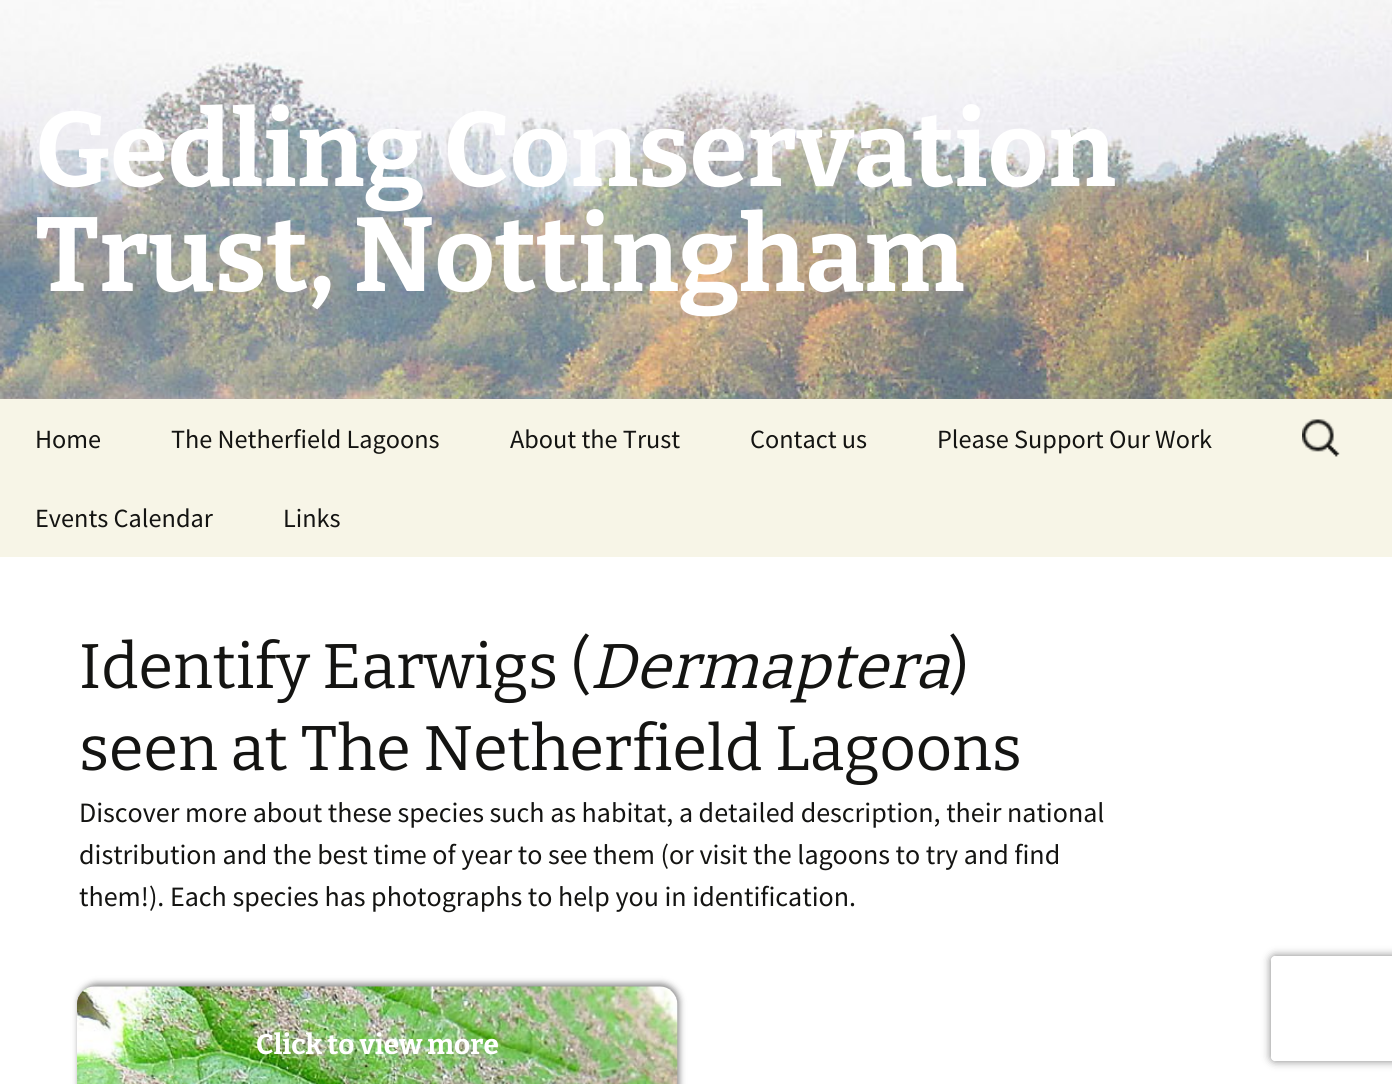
#include <cairo/cairo.h>
#include <math.h>
#include <stddef.h>

typedef struct { double x, y; const char *s; } line_t;
static cairo_t *cr;

static void rgb(unsigned color)
{
	cairo_set_source_rgb(cr, (color >> 16) / 255.0, (color >> 8 & 255) / 255.0, (color & 255) / 255.0);
}

static void rrect(double x, double y, double w, double h, double r)
{
	cairo_new_sub_path(cr);
	cairo_arc(cr, x + w - r, y + h - r, r, 0, M_PI / 2);
	cairo_arc(cr, x + r, y + h - r, r, M_PI / 2, M_PI);
	cairo_arc(cr, x + r, y + r, r, M_PI, 1.5 * M_PI);
	cairo_arc(cr, x + w - r, y + r, r, 1.5 * M_PI, 2 * M_PI);
	cairo_close_path(cr);
}

static void soft_shadow(double x, double y, double w, double h, double r, double blur, double alpha)
{
	cairo_push_group_with_content(cr, CAIRO_CONTENT_ALPHA);
	cairo_set_operator(cr, CAIRO_OPERATOR_SOURCE);
	for (int i = 15; i >= -15 && fmin(w, h) + blur * i / 3 > 0; i -= 2) {
		double e = blur * i / 6;
		cairo_set_source_rgba(cr, 0, 0, 0, alpha * erfc((i - 1) / 8.5) / 2);
		rrect(x - e, y - e, w + 2 * e, h + 2 * e, fmax(0, fmin(r + e + blur * .6, fmin(w, h) / 2 + e)));
		cairo_fill(cr);
	}
	cairo_pattern_t *soft = cairo_pop_group(cr);
	cairo_mask(cr, soft);
	cairo_pattern_destroy(soft);
}

static void image(const char *path, double x, double y, double w, double h)
{
	cairo_surface_t *image = cairo_image_surface_create_from_png(path);
	cairo_save(cr);
	cairo_set_source_surface(cr, image, x, y);
	cairo_rectangle(cr, x, y, w, h);
	cairo_fill(cr);
	cairo_restore(cr);
	cairo_surface_destroy(image);
}

int main(void) {
	cairo_surface_t *surface = cairo_image_surface_create(CAIRO_FORMAT_RGB24, 1392, 1084);
	cr = cairo_create(surface);
	cairo_font_options_t *options = cairo_font_options_create();
	cairo_font_options_set_hint_metrics(options, CAIRO_HINT_METRICS_OFF);
	cairo_font_options_set_hint_style(options, CAIRO_HINT_STYLE_NONE);
	cairo_set_font_options(cr, options);
	cairo_set_miter_limit(cr, 4);
	rgb(0xffffff);
	cairo_paint(cr);
	image("img/1.png", 0, 0, 1392, 399);
	rgb(0xf7f5e7);
	cairo_rectangle(cr, 0, 399, 1392, 158);
	cairo_fill(cr);
	image("img/2.png", 1302, 419, 38, 38);
	rgb(0x000000);
	soft_shadow(79, 984, 600, 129, 18, 3.5, 0.5);
	image("img/3.png", 77, 986, 601, 98);
	cairo_save(cr);
	cairo_set_fill_rule(cr, CAIRO_FILL_RULE_EVEN_ODD);
	cairo_new_path(cr);
	cairo_move_to(cr, 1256, 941);
	cairo_line_to(cr, 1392, 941);
	cairo_line_to(cr, 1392, 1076);
	cairo_line_to(cr, 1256, 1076);
	cairo_close_path(cr);
	cairo_move_to(cr, 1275, 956);
	cairo_line_to(cr, 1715, 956);
	cairo_curve_to(cr, 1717, 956, 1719, 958, 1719, 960);
	cairo_line_to(cr, 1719, 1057);
	cairo_curve_to(cr, 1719, 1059, 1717, 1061, 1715, 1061);
	cairo_line_to(cr, 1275, 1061);
	cairo_curve_to(cr, 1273, 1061, 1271, 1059, 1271, 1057);
	cairo_line_to(cr, 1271, 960);
	cairo_curve_to(cr, 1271, 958, 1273, 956, 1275, 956);
	cairo_close_path(cr);
	cairo_clip(cr);
	rgb(0x808080);
	soft_shadow(1271, 956, 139, 105, 4, 4.5, 1);
	cairo_restore(cr);
	cairo_select_font_face(cr, "Bitter Thin", CAIRO_FONT_SLANT_NORMAL, CAIRO_FONT_WEIGHT_NORMAL);
	cairo_set_font_size(cr, 105);
	rgb(0xffffff);
	cairo_move_to(cr, 35, 186);
	cairo_show_text(cr, "Gedling Conservation");
	cairo_move_to(cr, 35, 291);
	cairo_show_text(cr, "Trust, Nottingham");
	cairo_select_font_face(cr, "Source Sans Pro", CAIRO_FONT_SLANT_NORMAL, CAIRO_FONT_WEIGHT_NORMAL);
	cairo_set_font_size(cr, 26.25);
	rgb(0x141412);
	{
		static const line_t items[] = {
			{35, 448, "Home"},
			{171, 448, "The Netherfield Lagoons"},
			{510, 448, "About the Trust"},
			{750, 448, "Contact us"},
			{937, 448, "Please Support Our Work"},
			{35, 527, "Events Calendar"},
			{283, 527, "Links"},
		};
		for (size_t i = 0; i < sizeof items / sizeof *items; i++) {
			cairo_move_to(cr, items[i].x, items[i].y);
			cairo_show_text(cr, items[i].s);
		}
	}
	cairo_select_font_face(cr, "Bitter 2 Thin", CAIRO_FONT_SLANT_NORMAL, CAIRO_FONT_WEIGHT_NORMAL);
	cairo_set_font_size(cr, 63);
	cairo_move_to(cr, 79, 688);
	cairo_show_text(cr, "Identify Earwigs (");
	cairo_select_font_face(cr, "Bitter Thin", CAIRO_FONT_SLANT_ITALIC, CAIRO_FONT_WEIGHT_NORMAL);
	cairo_move_to(cr, 590, 688);
	cairo_show_text(cr, "Dermaptera");
	cairo_select_font_face(cr, "Bitter 2 Thin", CAIRO_FONT_SLANT_NORMAL, CAIRO_FONT_WEIGHT_NORMAL);
	cairo_move_to(cr, 949, 688);
	cairo_show_text(cr, ")");
	cairo_move_to(cr, 79, 770);
	cairo_show_text(cr, "seen at The Netherfield Lagoons");
	cairo_select_font_face(cr, "Source Sans Pro", CAIRO_FONT_SLANT_NORMAL, CAIRO_FONT_WEIGHT_NORMAL);
	cairo_set_font_size(cr, 28);
	{
		static const line_t items[] = {
			{79, 822, "Discover more about these species such as habitat, a detailed description, their national"},
			{79, 864, "distribution and the best time of year to see them (or visit the lagoons to try and find"},
			{79, 906, "them!). Each species has photographs to help you in identification."},
		};
		for (size_t i = 0; i < sizeof items / sizeof *items; i++) {
			cairo_move_to(cr, items[i].x, items[i].y);
			cairo_show_text(cr, items[i].s);
		}
	}
	cairo_select_font_face(cr, "Bitter Thin", CAIRO_FONT_SLANT_NORMAL, CAIRO_FONT_WEIGHT_NORMAL);
	rgb(0xffffff);
	cairo_move_to(cr, 256, 1054);
	cairo_show_text(cr, "Click to view more");
	cairo_surface_write_to_png(surface, "page.png");
	cairo_font_options_destroy(options);
	cairo_destroy(cr);
	cairo_surface_destroy(surface);
	return 0;
}
